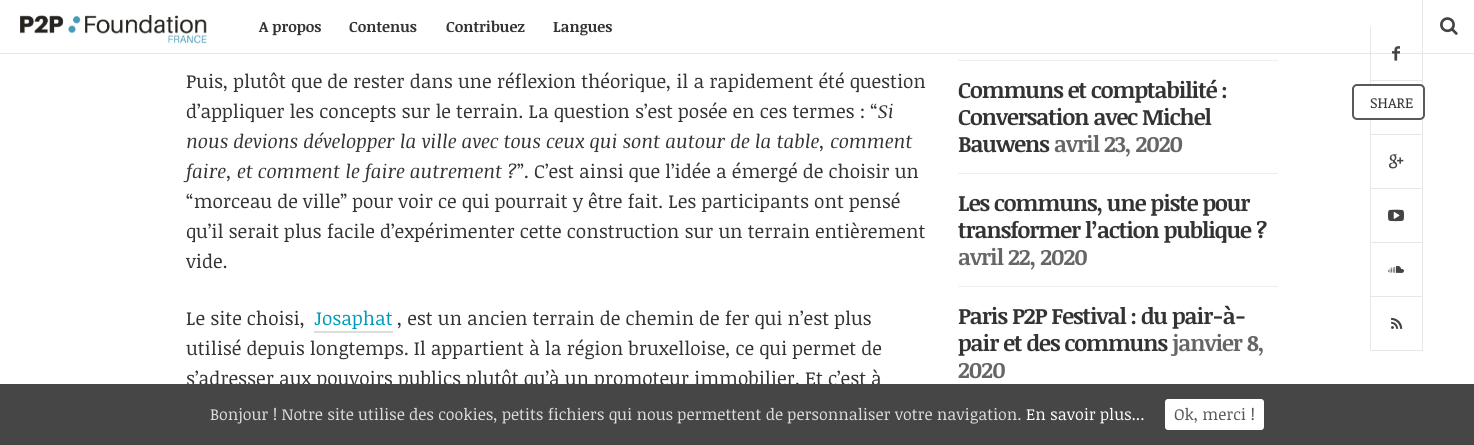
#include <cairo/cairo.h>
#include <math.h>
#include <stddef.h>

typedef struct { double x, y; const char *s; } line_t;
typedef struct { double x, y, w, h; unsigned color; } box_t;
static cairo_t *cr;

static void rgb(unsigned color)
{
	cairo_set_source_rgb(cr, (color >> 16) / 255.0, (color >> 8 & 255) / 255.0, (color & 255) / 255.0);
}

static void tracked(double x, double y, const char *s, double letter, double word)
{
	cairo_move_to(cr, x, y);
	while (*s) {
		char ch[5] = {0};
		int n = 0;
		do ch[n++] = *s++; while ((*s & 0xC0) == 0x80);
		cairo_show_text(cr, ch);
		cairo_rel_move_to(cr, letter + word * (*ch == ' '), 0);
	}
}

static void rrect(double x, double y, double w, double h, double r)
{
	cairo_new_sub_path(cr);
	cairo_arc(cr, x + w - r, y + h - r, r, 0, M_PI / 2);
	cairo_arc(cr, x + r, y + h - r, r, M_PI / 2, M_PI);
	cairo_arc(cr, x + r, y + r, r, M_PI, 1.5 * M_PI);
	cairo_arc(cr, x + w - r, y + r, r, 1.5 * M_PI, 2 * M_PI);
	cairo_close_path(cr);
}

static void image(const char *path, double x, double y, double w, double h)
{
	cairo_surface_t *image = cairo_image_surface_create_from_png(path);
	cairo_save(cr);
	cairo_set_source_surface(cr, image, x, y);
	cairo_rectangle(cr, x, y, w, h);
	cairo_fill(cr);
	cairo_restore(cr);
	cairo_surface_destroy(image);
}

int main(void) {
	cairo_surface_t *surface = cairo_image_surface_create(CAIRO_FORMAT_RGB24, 1474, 445);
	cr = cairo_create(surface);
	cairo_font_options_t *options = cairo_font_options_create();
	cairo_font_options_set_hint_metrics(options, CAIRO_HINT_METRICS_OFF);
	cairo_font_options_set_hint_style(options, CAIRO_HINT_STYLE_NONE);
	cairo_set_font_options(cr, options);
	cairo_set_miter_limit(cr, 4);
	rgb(0xffffff);
	cairo_paint(cr);
	rgb(0xe7e7e7);
	cairo_rectangle(cr, 0, 53, 1474, 1);
	cairo_fill(cr);
	image("img/1.png", 20, 15, 187, 29);
	{
		static const box_t items[] = {
			{1422, 0, 1, 351, 0xe7e7e7},
			{1370, 80, 53, 1, 0xe7e7e7},
			{1370, 27, 1, 54, 0xe7e7e7},
		};
		for (size_t i = 0; i < sizeof items / sizeof *items; i++) {
			rgb(items[i].color);
			cairo_rectangle(cr, items[i].x, items[i].y, items[i].w, items[i].h);
			cairo_fill(cr);
		}
	}
	image("img/2.png", 1392, 46, 8, 15);
	{
		static const box_t items[] = {
			{1370, 134, 53, 1, 0xe7e7e7},
			{1370, 81, 1, 54, 0xe7e7e7},
			{1370, 188, 53, 1, 0xe7e7e7},
			{1370, 135, 1, 54, 0xe7e7e7},
		};
		for (size_t i = 0; i < sizeof items / sizeof *items; i++) {
			rgb(items[i].color);
			cairo_rectangle(cr, items[i].x, items[i].y, items[i].w, items[i].h);
			cairo_fill(cr);
		}
	}
	image("img/3.png", 1389, 154, 15, 15);
	cairo_rectangle(cr, 1370, 242, 53, 1);
	cairo_fill(cr);
	cairo_rectangle(cr, 1370, 189, 1, 54);
	cairo_fill(cr);
	image("img/4.png", 1388, 209, 16, 13);
	cairo_rectangle(cr, 1370, 296, 53, 1);
	cairo_fill(cr);
	cairo_rectangle(cr, 1370, 243, 1, 54);
	cairo_fill(cr);
	image("img/5.png", 1388, 265, 16, 8);
	cairo_rectangle(cr, 1370, 350, 53, 1);
	cairo_fill(cr);
	cairo_rectangle(cr, 1370, 297, 1, 54);
	cairo_fill(cr);
	image("img/6.png", 1391, 317, 12, 12);
	image("img/7.png", 1440, 17, 18, 18);
	{
		static const box_t items[] = {
			{314, 331, 79, 2, 0xdddddd},
			{958, 60, 320, 1, 0xeeeeee},
			{958, 173, 320, 1, 0xeeeeee},
			{958, 286, 320, 1, 0xeeeeee},
		};
		for (size_t i = 0; i < sizeof items / sizeof *items; i++) {
			rgb(items[i].color);
			cairo_rectangle(cr, items[i].x, items[i].y, items[i].w, items[i].h);
			cairo_fill(cr);
		}
	}
	rgb(0xffffff);
	rrect(1353, 85, 71, 34, 4);
	cairo_fill_preserve(cr);
	rgb(0x595959);
	cairo_stroke(cr);
	cairo_select_font_face(cr, "Noticia Text", CAIRO_FONT_SLANT_NORMAL, CAIRO_FONT_WEIGHT_BOLD);
	cairo_set_font_size(cr, 15);
	rgb(0x333333);
	{
		static const line_t items[] = {
			{259, 32, "A propos"},
			{349, 32, "Contenus"},
			{446, 32, "Contribuez"},
			{553, 32, "Langues"},
		};
		for (size_t i = 0; i < sizeof items / sizeof *items; i++) {
			cairo_move_to(cr, items[i].x, items[i].y);
			cairo_show_text(cr, items[i].s);
		}
	}
	cairo_select_font_face(cr, "Noticia Text", CAIRO_FONT_SLANT_NORMAL, CAIRO_FONT_WEIGHT_NORMAL);
	cairo_set_font_size(cr, 19);
	cairo_move_to(cr, 186, 88);
	cairo_show_text(cr, "Puis, plutôt que de rester dans une réflexion théorique, il a rapidement été question");
	cairo_move_to(cr, 186, 118);
	cairo_show_text(cr, "d’appliquer les concepts sur le terrain. La question s’est posée en ces termes : “");
	cairo_select_font_face(cr, "Noticia Text", CAIRO_FONT_SLANT_ITALIC, CAIRO_FONT_WEIGHT_NORMAL);
	{
		static const line_t items[] = {
			{878, 118, "Si"},
			{186, 148, "nous devions développer la ville avec tous ceux qui sont autour de la table, comment"},
			{186, 178, "faire, et comment le faire autrement ?"},
		};
		for (size_t i = 0; i < sizeof items / sizeof *items; i++) {
			cairo_move_to(cr, items[i].x, items[i].y);
			cairo_show_text(cr, items[i].s);
		}
	}
	cairo_select_font_face(cr, "Noticia Text", CAIRO_FONT_SLANT_NORMAL, CAIRO_FONT_WEIGHT_NORMAL);
	{
		static const line_t items[] = {
			{517, 178, "”. C’est ainsi que l’idée a émergé de choisir un"},
			{186, 208, "“morceau de ville” pour voir ce qui pourrait y être fait. Les participants ont pensé"},
			{186, 238, "qu’il serait plus facile d’expérimenter cette construction sur un terrain entièrement"},
			{186, 268, "vide."},
			{186, 325, "Le site choisi,"},
		};
		for (size_t i = 0; i < sizeof items / sizeof *items; i++) {
			cairo_move_to(cr, items[i].x, items[i].y);
			cairo_show_text(cr, items[i].s);
		}
	}
	rgb(0x009cba);
	cairo_move_to(cr, 314, 325);
	cairo_show_text(cr, "Josaphat");
	rgb(0x333333);
	{
		static const line_t items[] = {
			{397, 325, ", est un ancien terrain de chemin de fer qui n’est plus"},
			{186, 355, "utilisé depuis longtemps. Il appartient à la région bruxelloise, ce qui permet de"},
			{186, 385, "s’adresser aux pouvoirs publics plutôt qu’à un promoteur immobilier. Et c’est à"},
		};
		for (size_t i = 0; i < sizeof items / sizeof *items; i++) {
			cairo_move_to(cr, items[i].x, items[i].y);
			cairo_show_text(cr, items[i].s);
		}
	}
	cairo_select_font_face(cr, "Noticia Text", CAIRO_FONT_SLANT_NORMAL, CAIRO_FONT_WEIGHT_BOLD);
	cairo_set_font_size(cr, 22.4);
	{
		static const line_t items[] = {
			{958, 98, "Communs et comptabilité :"},
			{958, 125, "Conversation avec Michel"},
			{958, 152, "Bauwens"},
		};
		for (size_t i = 0; i < sizeof items / sizeof *items; i++) {
			tracked(items[i].x, items[i].y, items[i].s, -1, 0);
		}
	}
	rgb(0x666666);
	tracked(1054, 152, "avril 23, 2020", -1, 0);
	rgb(0x333333);
	tracked(958, 211, "Les communs, une piste pour", -1, 0);
	tracked(958, 238, "transformer l’action publique ?", -1, 0);
	rgb(0x666666);
	tracked(958, 265, "avril 22, 2020", -1, 0);
	rgb(0x333333);
	tracked(958, 324, "Paris P2P Festival : du pair-à-", -1, 0);
	tracked(958, 351, "pair et des communs", -1, 0);
	rgb(0x666666);
	tracked(1172, 351, "janvier 8,", -1, 0);
	tracked(958, 378, "2020", -1, 0);
	cairo_select_font_face(cr, "Noticia Text", CAIRO_FONT_SLANT_NORMAL, CAIRO_FONT_WEIGHT_NORMAL);
	cairo_set_font_size(cr, 14.5);
	rgb(0x333333);
	cairo_move_to(cr, 1370, 108);
	cairo_show_text(cr, "SHARE");
	rgb(0x464646);
	cairo_rectangle(cr, 0, 384, 1474, 61);
	cairo_fill(cr);
	cairo_set_font_size(cr, 16);
	rgb(0xdddddd);
	cairo_move_to(cr, 210, 420);
	cairo_show_text(cr, "Bonjour ! Notre site utilise des cookies, petits fichiers qui nous permettent de personnaliser votre navigation.");
	rgb(0xffffff);
	cairo_move_to(cr, 1026, 420);
	cairo_show_text(cr, "En savoir plus...");
	rrect(1165, 399, 99, 31, 3);
	cairo_fill(cr);
	rgb(0x555555);
	cairo_move_to(cr, 1174, 420);
	cairo_show_text(cr, "Ok, merci !");
	cairo_surface_write_to_png(surface, "page.png");
	cairo_font_options_destroy(options);
	cairo_destroy(cr);
	cairo_surface_destroy(surface);
	return 0;
}
